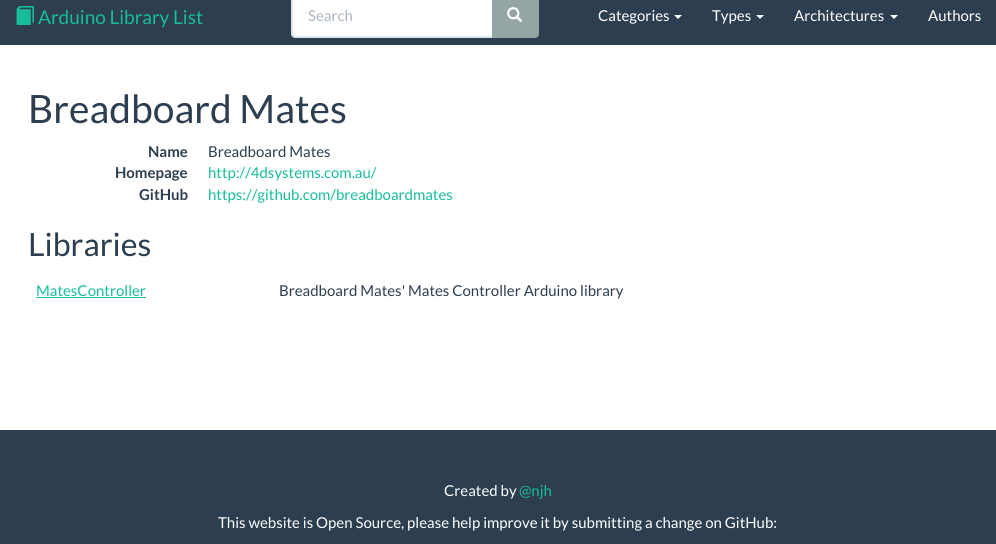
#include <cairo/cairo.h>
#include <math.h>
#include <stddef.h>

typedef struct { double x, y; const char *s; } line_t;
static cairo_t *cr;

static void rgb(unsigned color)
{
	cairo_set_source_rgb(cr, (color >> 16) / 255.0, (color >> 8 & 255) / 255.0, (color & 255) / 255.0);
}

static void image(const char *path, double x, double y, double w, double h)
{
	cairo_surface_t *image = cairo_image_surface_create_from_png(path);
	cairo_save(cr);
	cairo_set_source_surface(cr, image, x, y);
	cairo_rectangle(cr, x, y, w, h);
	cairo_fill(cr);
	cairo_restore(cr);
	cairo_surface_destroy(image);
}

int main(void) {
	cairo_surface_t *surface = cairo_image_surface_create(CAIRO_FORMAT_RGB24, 996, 544);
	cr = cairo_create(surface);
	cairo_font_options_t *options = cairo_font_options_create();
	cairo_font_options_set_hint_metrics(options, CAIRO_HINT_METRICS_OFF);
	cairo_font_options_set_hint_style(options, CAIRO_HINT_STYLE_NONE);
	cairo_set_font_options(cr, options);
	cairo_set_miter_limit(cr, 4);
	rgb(0xffffff);
	cairo_paint(cr);
	rgb(0x2c3e50);
	cairo_rectangle(cr, 0, 0, 996, 45);
	cairo_fill(cr);
	image("img/1.png", 16, 6, 18, 19);
	rgb(0xffffff);
	cairo_new_path(cr);
	cairo_move_to(cr, 295, -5);
	cairo_line_to(cr, 494, -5);
	cairo_line_to(cr, 494, 37);
	cairo_line_to(cr, 295, 37);
	cairo_curve_to(cr, 293.5, 37, 292, 35.5, 292, 34);
	cairo_line_to(cr, 292, -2);
	cairo_curve_to(cr, 292, -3.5, 293.5, -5, 295, -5);
	cairo_close_path(cr);
	cairo_fill_preserve(cr);
	rgb(0xdce4ec);
	cairo_stroke(cr);
	rgb(0x95a5a6);
	cairo_new_path(cr);
	cairo_move_to(cr, 492, -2);
	cairo_line_to(cr, 535, -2);
	cairo_curve_to(cr, 536, -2, 537, -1, 537, 0);
	cairo_line_to(cr, 537, 34);
	cairo_curve_to(cr, 537, 35, 536, 36, 535, 36);
	cairo_line_to(cr, 492, 36);
	cairo_close_path(cr);
	cairo_fill(cr);
	cairo_set_fill_rule(cr, CAIRO_FILL_RULE_EVEN_ODD);
	cairo_new_path(cr);
	cairo_move_to(cr, 492, -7);
	cairo_line_to(cr, 535, -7);
	cairo_curve_to(cr, 537, -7, 539, -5, 539, -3);
	cairo_line_to(cr, 539, 34);
	cairo_curve_to(cr, 539, 36, 537, 38, 535, 38);
	cairo_line_to(cr, 492, 38);
	cairo_close_path(cr);
	cairo_move_to(cr, 492, -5);
	cairo_line_to(cr, 535, -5);
	cairo_curve_to(cr, 536, -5, 537, -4, 537, -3);
	cairo_line_to(cr, 537, 34);
	cairo_curve_to(cr, 537, 35, 536, 36, 535, 36);
	cairo_line_to(cr, 492, 36);
	cairo_close_path(cr);
	cairo_fill(cr);
	image("img/2.png", 507, 7, 15, 15);
	rgb(0xffffff);
	cairo_set_fill_rule(cr, CAIRO_FILL_RULE_WINDING);
	cairo_new_path(cr);
	cairo_move_to(cr, 674, 15);
	cairo_line_to(cr, 682, 15);
	cairo_line_to(cr, 678, 19);
	cairo_close_path(cr);
	cairo_fill(cr);
	cairo_new_path(cr);
	cairo_move_to(cr, 756, 15);
	cairo_line_to(cr, 764, 15);
	cairo_line_to(cr, 760, 19);
	cairo_close_path(cr);
	cairo_fill(cr);
	cairo_new_path(cr);
	cairo_move_to(cr, 890, 15);
	cairo_line_to(cr, 898, 15);
	cairo_line_to(cr, 894, 19);
	cairo_close_path(cr);
	cairo_fill(cr);
	rgb(0x18bc9c);
	cairo_rectangle(cr, 36, 297, 110, 1);
	cairo_fill(cr);
	rgb(0x2c3e50);
	cairo_rectangle(cr, 0, 430, 996, 114);
	cairo_fill(cr);
	cairo_select_font_face(cr, "Lato", CAIRO_FONT_SLANT_NORMAL, CAIRO_FONT_WEIGHT_NORMAL);
	cairo_set_font_size(cr, 19);
	rgb(0x18bc9c);
	cairo_move_to(cr, 38, 24);
	cairo_show_text(cr, "Arduino Library List");
	cairo_set_font_size(cr, 15);
	rgb(0xacb6c0);
	cairo_move_to(cr, 308, 21);
	cairo_show_text(cr, "Search");
	rgb(0xffffff);
	{
		static const line_t items[] = {
			{598, 21, "Categories"},
			{712, 21, "Types"},
			{794, 21, "Architectures"},
			{928, 21, "Authors"},
		};
		for (size_t i = 0; i < sizeof items / sizeof *items; i++) {
			cairo_move_to(cr, items[i].x, items[i].y);
			cairo_show_text(cr, items[i].s);
		}
	}
	cairo_set_font_size(cr, 39);
	rgb(0x2c3e50);
	cairo_move_to(cr, 28, 123);
	cairo_show_text(cr, "Breadboard Mates");
	cairo_select_font_face(cr, "Lato", CAIRO_FONT_SLANT_NORMAL, CAIRO_FONT_WEIGHT_BOLD);
	cairo_set_font_size(cr, 15);
	cairo_move_to(cr, 148, 157);
	cairo_show_text(cr, "Name");
	cairo_select_font_face(cr, "Lato", CAIRO_FONT_SLANT_NORMAL, CAIRO_FONT_WEIGHT_NORMAL);
	cairo_move_to(cr, 208, 157);
	cairo_show_text(cr, "Breadboard Mates");
	cairo_select_font_face(cr, "Lato", CAIRO_FONT_SLANT_NORMAL, CAIRO_FONT_WEIGHT_BOLD);
	cairo_move_to(cr, 115, 178);
	cairo_show_text(cr, "Homepage");
	cairo_select_font_face(cr, "Lato", CAIRO_FONT_SLANT_NORMAL, CAIRO_FONT_WEIGHT_NORMAL);
	rgb(0x18bc9c);
	cairo_move_to(cr, 208, 178);
	cairo_show_text(cr, "http://4dsystems.com.au/");
	cairo_select_font_face(cr, "Lato", CAIRO_FONT_SLANT_NORMAL, CAIRO_FONT_WEIGHT_BOLD);
	rgb(0x2c3e50);
	cairo_move_to(cr, 139, 200);
	cairo_show_text(cr, "GitHub");
	cairo_select_font_face(cr, "Lato", CAIRO_FONT_SLANT_NORMAL, CAIRO_FONT_WEIGHT_NORMAL);
	rgb(0x18bc9c);
	cairo_move_to(cr, 208, 200);
	cairo_show_text(cr, "https://github.com/breadboardmates");
	cairo_set_font_size(cr, 32);
	rgb(0x2c3e50);
	cairo_move_to(cr, 28, 256);
	cairo_show_text(cr, "Libraries");
	cairo_set_font_size(cr, 15);
	rgb(0x18bc9c);
	cairo_move_to(cr, 36, 296);
	cairo_show_text(cr, "MatesController");
	rgb(0x2c3e50);
	cairo_move_to(cr, 279, 296);
	cairo_show_text(cr, "Breadboard Mates' Mates Controller Arduino library");
	rgb(0xffffff);
	cairo_move_to(cr, 444, 496);
	cairo_show_text(cr, "Created by");
	rgb(0x18bc9c);
	cairo_move_to(cr, 519, 496);
	cairo_show_text(cr, "@njh");
	rgb(0xffffff);
	cairo_move_to(cr, 218, 528);
	cairo_show_text(cr, "This website is Open Source, please help improve it by submitting a change on GitHub:");
	cairo_surface_write_to_png(surface, "page.png");
	cairo_font_options_destroy(options);
	cairo_destroy(cr);
	cairo_surface_destroy(surface);
	return 0;
}
